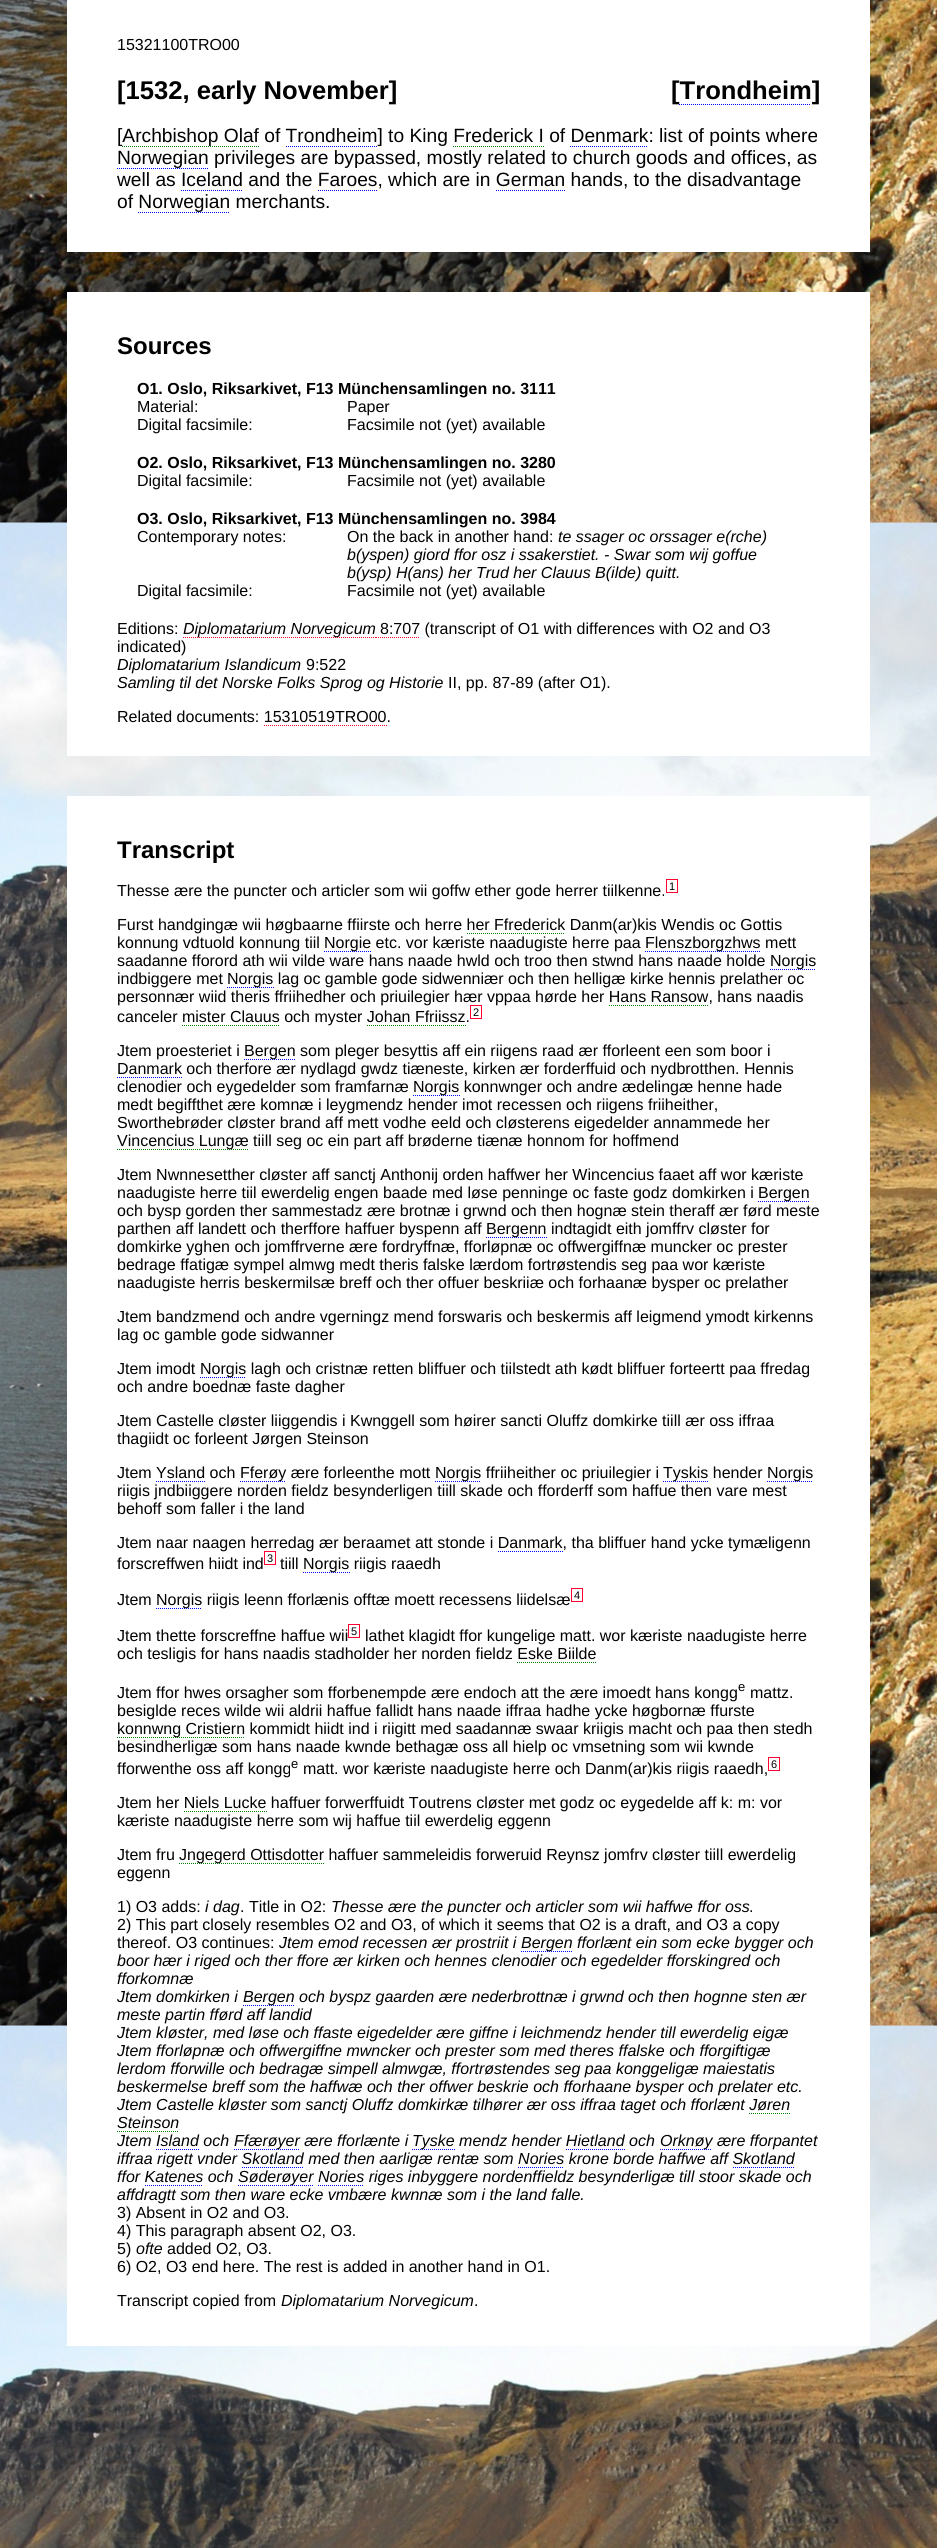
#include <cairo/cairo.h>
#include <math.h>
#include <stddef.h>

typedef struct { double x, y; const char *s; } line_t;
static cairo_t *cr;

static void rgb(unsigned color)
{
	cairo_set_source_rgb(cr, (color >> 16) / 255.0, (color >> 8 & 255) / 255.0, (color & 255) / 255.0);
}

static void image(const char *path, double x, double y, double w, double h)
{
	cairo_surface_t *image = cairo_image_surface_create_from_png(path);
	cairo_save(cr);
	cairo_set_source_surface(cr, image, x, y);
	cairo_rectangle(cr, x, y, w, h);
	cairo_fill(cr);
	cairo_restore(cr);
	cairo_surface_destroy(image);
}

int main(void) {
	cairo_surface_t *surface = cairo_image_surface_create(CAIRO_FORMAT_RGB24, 937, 2548);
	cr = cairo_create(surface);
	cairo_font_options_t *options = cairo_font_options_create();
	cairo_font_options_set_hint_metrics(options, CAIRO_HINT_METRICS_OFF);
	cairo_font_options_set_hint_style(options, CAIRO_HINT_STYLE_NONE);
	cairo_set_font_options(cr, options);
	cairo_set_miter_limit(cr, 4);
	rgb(0xffffff);
	cairo_paint(cr);
	image("img/1.png", 0, 0, 937, 2548);
	rgb(0xffffff);
	cairo_rectangle(cr, 67, 0, 803, 252);
	cairo_fill(cr);
	cairo_new_path(cr);
	cairo_move_to(cr, 122, 146.5);
	cairo_line_to(cr, 259, 146.5);
	rgb(0x008000);
	cairo_set_line_width(cr, 1);
	cairo_set_dash(cr, (double[]){1, 1}, 2, 0);
	cairo_stroke(cr);
	cairo_new_path(cr);
	cairo_move_to(cr, 286, 146.5);
	cairo_line_to(cr, 377, 146.5);
	rgb(0x0000ff);
	cairo_stroke(cr);
	cairo_new_path(cr);
	cairo_move_to(cr, 453, 146.5);
	cairo_line_to(cr, 544, 146.5);
	rgb(0x008000);
	cairo_stroke(cr);
	cairo_new_path(cr);
	cairo_move_to(cr, 570, 146.5);
	cairo_line_to(cr, 648, 146.5);
	rgb(0x0000ff);
	cairo_stroke(cr);
	cairo_new_path(cr);
	cairo_move_to(cr, 117, 168.5);
	cairo_line_to(cr, 209, 168.5);
	cairo_stroke(cr);
	cairo_new_path(cr);
	cairo_move_to(cr, 181, 190.5);
	cairo_line_to(cr, 243, 190.5);
	cairo_stroke(cr);
	cairo_new_path(cr);
	cairo_move_to(cr, 318, 190.5);
	cairo_line_to(cr, 377, 190.5);
	cairo_stroke(cr);
	cairo_new_path(cr);
	cairo_move_to(cr, 496, 190.5);
	cairo_line_to(cr, 565, 190.5);
	cairo_stroke(cr);
	cairo_new_path(cr);
	cairo_move_to(cr, 138, 212.5);
	cairo_line_to(cr, 230, 212.5);
	cairo_stroke(cr);
	rgb(0xffffff);
	cairo_rectangle(cr, 67, 292, 803, 464);
	cairo_fill(cr);
	cairo_new_path(cr);
	cairo_move_to(cr, 183, 637.5);
	cairo_line_to(cr, 376, 637.5);
	rgb(0xff0030);
	cairo_stroke(cr);
	cairo_new_path(cr);
	cairo_move_to(cr, 376, 637.5);
	cairo_line_to(cr, 420, 637.5);
	cairo_stroke(cr);
	cairo_new_path(cr);
	cairo_move_to(cr, 264, 725.5);
	cairo_line_to(cr, 387, 725.5);
	cairo_stroke(cr);
	rgb(0xffffff);
	cairo_rectangle(cr, 67, 796, 803, 1550);
	cairo_fill(cr);
	cairo_rectangle(cr, 666.5, 879.5, 11, 13);
	rgb(0xff0030);
	cairo_set_dash(cr, NULL, 0, 0);
	cairo_stroke(cr);
	cairo_new_path(cr);
	cairo_move_to(cr, 324, 951.5);
	cairo_line_to(cr, 372, 951.5);
	rgb(0x0000ff);
	cairo_set_dash(cr, (double[]){1, 1}, 2, 0);
	cairo_stroke(cr);
	cairo_new_path(cr);
	cairo_move_to(cr, 645, 951.5);
	cairo_line_to(cr, 761, 951.5);
	cairo_stroke(cr);
	cairo_new_path(cr);
	cairo_move_to(cr, 770, 969.5);
	cairo_line_to(cr, 816, 969.5);
	cairo_stroke(cr);
	cairo_new_path(cr);
	cairo_move_to(cr, 227, 987.5);
	cairo_line_to(cr, 274, 987.5);
	cairo_stroke(cr);
	cairo_new_path(cr);
	cairo_move_to(cr, 244, 1059.5);
	cairo_line_to(cr, 296, 1059.5);
	cairo_stroke(cr);
	cairo_new_path(cr);
	cairo_move_to(cr, 117, 1077.5);
	cairo_line_to(cr, 182, 1077.5);
	cairo_stroke(cr);
	cairo_new_path(cr);
	cairo_move_to(cr, 413, 1095.5);
	cairo_line_to(cr, 460, 1095.5);
	cairo_stroke(cr);
	cairo_new_path(cr);
	cairo_move_to(cr, 117, 1149.5);
	cairo_line_to(cr, 249, 1149.5);
	rgb(0x008000);
	cairo_stroke(cr);
	cairo_new_path(cr);
	cairo_move_to(cr, 758, 1201.5);
	cairo_line_to(cr, 810, 1201.5);
	rgb(0x0000ff);
	cairo_stroke(cr);
	cairo_new_path(cr);
	cairo_move_to(cr, 486, 1237.5);
	cairo_line_to(cr, 547, 1237.5);
	cairo_stroke(cr);
	cairo_new_path(cr);
	cairo_move_to(cr, 200, 1377.5);
	cairo_line_to(cr, 246, 1377.5);
	cairo_stroke(cr);
	cairo_new_path(cr);
	cairo_move_to(cr, 240, 1481.5);
	cairo_line_to(cr, 286, 1481.5);
	cairo_stroke(cr);
	cairo_new_path(cr);
	cairo_move_to(cr, 435, 1481.5);
	cairo_line_to(cr, 481, 1481.5);
	cairo_stroke(cr);
	cairo_new_path(cr);
	cairo_move_to(cr, 663, 1481.5);
	cairo_line_to(cr, 708, 1481.5);
	cairo_stroke(cr);
	cairo_new_path(cr);
	cairo_move_to(cr, 767, 1481.5);
	cairo_line_to(cr, 813, 1481.5);
	cairo_stroke(cr);
	cairo_new_path(cr);
	cairo_move_to(cr, 156, 1481.5);
	cairo_line_to(cr, 205, 1481.5);
	cairo_stroke(cr);
	cairo_new_path(cr);
	cairo_move_to(cr, 303, 1572.5);
	cairo_line_to(cr, 350, 1572.5);
	cairo_stroke(cr);
	cairo_new_path(cr);
	cairo_move_to(cr, 156, 1608.5);
	cairo_line_to(cr, 202, 1608.5);
	cairo_stroke(cr);
	cairo_rectangle(cr, 571.5, 1588.5, 11, 13);
	rgb(0xff0030);
	cairo_set_dash(cr, NULL, 0, 0);
	cairo_stroke(cr);
	cairo_rectangle(cr, 348.5, 1624.5, 11, 13);
	cairo_stroke(cr);
	cairo_new_path(cr);
	cairo_move_to(cr, 117, 1737.5);
	cairo_line_to(cr, 245, 1737.5);
	rgb(0x008000);
	cairo_set_dash(cr, (double[]){1, 1}, 2, 0);
	cairo_stroke(cr);
	cairo_rectangle(cr, 768.5, 1757.5, 11, 13);
	rgb(0xff0030);
	cairo_set_dash(cr, NULL, 0, 0);
	cairo_stroke(cr);
	cairo_new_path(cr);
	cairo_move_to(cr, 179, 1863.5);
	cairo_line_to(cr, 324, 1863.5);
	rgb(0x008000);
	cairo_set_dash(cr, (double[]){1, 1}, 2, 0);
	cairo_stroke(cr);
	cairo_new_path(cr);
	cairo_move_to(cr, 521, 1951.5);
	cairo_line_to(cr, 572, 1951.5);
	rgb(0x0000ff);
	cairo_stroke(cr);
	cairo_new_path(cr);
	cairo_move_to(cr, 243, 2005.5);
	cairo_line_to(cr, 294, 2005.5);
	cairo_stroke(cr);
	cairo_new_path(cr);
	cairo_move_to(cr, 117, 2131.5);
	cairo_line_to(cr, 179, 2131.5);
	rgb(0x008000);
	cairo_stroke(cr);
	cairo_new_path(cr);
	cairo_move_to(cr, 156, 2149.5);
	cairo_line_to(cr, 199, 2149.5);
	rgb(0x0000ff);
	cairo_stroke(cr);
	cairo_new_path(cr);
	cairo_move_to(cr, 234, 2149.5);
	cairo_line_to(cr, 299, 2149.5);
	cairo_stroke(cr);
	cairo_new_path(cr);
	cairo_move_to(cr, 412, 2149.5);
	cairo_line_to(cr, 455, 2149.5);
	cairo_stroke(cr);
	cairo_new_path(cr);
	cairo_move_to(cr, 660, 2149.5);
	cairo_line_to(cr, 712, 2149.5);
	cairo_stroke(cr);
	cairo_new_path(cr);
	cairo_move_to(cr, 145, 2185.5);
	cairo_line_to(cr, 203, 2185.5);
	cairo_stroke(cr);
	cairo_new_path(cr);
	cairo_move_to(cr, 238, 2185.5);
	cairo_line_to(cr, 314, 2185.5);
	cairo_stroke(cr);
	cairo_select_font_face(cr, "Liberation Sans", CAIRO_FONT_SLANT_NORMAL, CAIRO_FONT_WEIGHT_NORMAL);
	cairo_set_font_size(cr, 16);
	rgb(0x000000);
	cairo_move_to(cr, 117, 50);
	cairo_show_text(cr, "15321100TRO00");
	cairo_select_font_face(cr, "Liberation Sans", CAIRO_FONT_SLANT_NORMAL, CAIRO_FONT_WEIGHT_BOLD);
	cairo_set_font_size(cr, 25.6);
	cairo_move_to(cr, 117, 99);
	cairo_show_text(cr, "[1532, early November]");
	cairo_move_to(cr, 671, 99);
	cairo_show_text(cr, "[Trondheim]");
	cairo_new_path(cr);
	cairo_move_to(cr, 679, 104.5);
	cairo_line_to(cr, 811, 104.5);
	rgb(0x0000ff);
	cairo_stroke(cr);
	cairo_select_font_face(cr, "Liberation Sans", CAIRO_FONT_SLANT_NORMAL, CAIRO_FONT_WEIGHT_NORMAL);
	cairo_set_font_size(cr, 19.2);
	rgb(0x000000);
	{
		static const line_t items[] = {
			{117, 142, "[Archbishop Olaf of Trondheim] to King Frederick I of Denmark: list of points where"},
			{117, 164, "Norwegian privileges are bypassed, mostly related to church goods and offices, as"},
			{117, 186, "well as Iceland and the Faroes, which are in German hands, to the disadvantage"},
			{117, 208, "of Norwegian merchants."},
		};
		for (size_t i = 0; i < sizeof items / sizeof *items; i++) {
			cairo_move_to(cr, items[i].x, items[i].y);
			cairo_show_text(cr, items[i].s);
		}
	}
	cairo_select_font_face(cr, "Liberation Sans", CAIRO_FONT_SLANT_NORMAL, CAIRO_FONT_WEIGHT_BOLD);
	cairo_set_font_size(cr, 24);
	cairo_move_to(cr, 117, 354);
	cairo_show_text(cr, "Sources");
	cairo_set_font_size(cr, 16);
	cairo_move_to(cr, 137, 394);
	cairo_show_text(cr, "O1. Oslo, Riksarkivet");
	cairo_move_to(cr, 297, 394);
	cairo_show_text(cr, ", F13 Münchensamlingen no. 3111");
	cairo_select_font_face(cr, "Liberation Sans", CAIRO_FONT_SLANT_NORMAL, CAIRO_FONT_WEIGHT_NORMAL);
	{
		static const line_t items[] = {
			{137, 412, "Material:"},
			{347, 412, "Paper"},
			{137, 430, "Digital facsimile:"},
			{347, 430, "Facsimile not (yet) available"},
		};
		for (size_t i = 0; i < sizeof items / sizeof *items; i++) {
			cairo_move_to(cr, items[i].x, items[i].y);
			cairo_show_text(cr, items[i].s);
		}
	}
	cairo_select_font_face(cr, "Liberation Sans", CAIRO_FONT_SLANT_NORMAL, CAIRO_FONT_WEIGHT_BOLD);
	cairo_move_to(cr, 137, 468);
	cairo_show_text(cr, "O2. Oslo, Riksarkivet");
	cairo_move_to(cr, 297, 468);
	cairo_show_text(cr, ", F13 Münchensamlingen no. 3280");
	cairo_select_font_face(cr, "Liberation Sans", CAIRO_FONT_SLANT_NORMAL, CAIRO_FONT_WEIGHT_NORMAL);
	cairo_move_to(cr, 137, 486);
	cairo_show_text(cr, "Digital facsimile:");
	cairo_move_to(cr, 347, 486);
	cairo_show_text(cr, "Facsimile not (yet) available");
	cairo_select_font_face(cr, "Liberation Sans", CAIRO_FONT_SLANT_NORMAL, CAIRO_FONT_WEIGHT_BOLD);
	cairo_move_to(cr, 137, 524);
	cairo_show_text(cr, "O3. Oslo, Riksarkivet");
	cairo_move_to(cr, 297, 524);
	cairo_show_text(cr, ", F13 Münchensamlingen no. 3984");
	cairo_select_font_face(cr, "Liberation Sans", CAIRO_FONT_SLANT_NORMAL, CAIRO_FONT_WEIGHT_NORMAL);
	cairo_move_to(cr, 137, 542);
	cairo_show_text(cr, "Contemporary notes:");
	cairo_move_to(cr, 347, 542);
	cairo_show_text(cr, "On the back in another hand:");
	cairo_select_font_face(cr, "Liberation Sans", CAIRO_FONT_SLANT_ITALIC, CAIRO_FONT_WEIGHT_NORMAL);
	{
		static const line_t items[] = {
			{558, 542, "te ssager oc orssager e(rche)"},
			{347, 560, "b(yspen) giord ffor osz i ssakerstiet. - Swar som wij goffue"},
			{347, 578, "b(ysp) H(ans) her Trud her Clauus B(ilde) quitt."},
		};
		for (size_t i = 0; i < sizeof items / sizeof *items; i++) {
			cairo_move_to(cr, items[i].x, items[i].y);
			cairo_show_text(cr, items[i].s);
		}
	}
	cairo_select_font_face(cr, "Liberation Sans", CAIRO_FONT_SLANT_NORMAL, CAIRO_FONT_WEIGHT_NORMAL);
	{
		static const line_t items[] = {
			{137, 596, "Digital facsimile:"},
			{347, 596, "Facsimile not (yet) available"},
			{117, 634, "Editions:"},
		};
		for (size_t i = 0; i < sizeof items / sizeof *items; i++) {
			cairo_move_to(cr, items[i].x, items[i].y);
			cairo_show_text(cr, items[i].s);
		}
	}
	cairo_select_font_face(cr, "Liberation Sans", CAIRO_FONT_SLANT_ITALIC, CAIRO_FONT_WEIGHT_NORMAL);
	cairo_move_to(cr, 183, 634);
	cairo_show_text(cr, "Diplomatarium Norvegicum");
	cairo_select_font_face(cr, "Liberation Sans", CAIRO_FONT_SLANT_NORMAL, CAIRO_FONT_WEIGHT_NORMAL);
	cairo_move_to(cr, 380, 634);
	cairo_show_text(cr, "8:707 (transcript of O1 with differences with O2 and O3");
	cairo_move_to(cr, 117, 652);
	cairo_show_text(cr, "indicated)");
	cairo_select_font_face(cr, "Liberation Sans", CAIRO_FONT_SLANT_ITALIC, CAIRO_FONT_WEIGHT_NORMAL);
	cairo_move_to(cr, 117, 670);
	cairo_show_text(cr, "Diplomatarium Islandicum");
	cairo_select_font_face(cr, "Liberation Sans", CAIRO_FONT_SLANT_NORMAL, CAIRO_FONT_WEIGHT_NORMAL);
	cairo_move_to(cr, 306, 670);
	cairo_show_text(cr, "9:522");
	cairo_select_font_face(cr, "Liberation Sans", CAIRO_FONT_SLANT_ITALIC, CAIRO_FONT_WEIGHT_NORMAL);
	cairo_move_to(cr, 117, 688);
	cairo_show_text(cr, "Samling til det Norske Folks Sprog og Historie");
	cairo_select_font_face(cr, "Liberation Sans", CAIRO_FONT_SLANT_NORMAL, CAIRO_FONT_WEIGHT_NORMAL);
	cairo_move_to(cr, 448, 688);
	cairo_show_text(cr, "II, pp. 87-89 (after O1).");
	cairo_move_to(cr, 117, 722);
	cairo_show_text(cr, "Related documents: 15310519TRO00.");
	cairo_select_font_face(cr, "Liberation Sans", CAIRO_FONT_SLANT_NORMAL, CAIRO_FONT_WEIGHT_BOLD);
	cairo_set_font_size(cr, 24);
	cairo_move_to(cr, 117, 858);
	cairo_show_text(cr, "Transcript");
	cairo_select_font_face(cr, "Liberation Sans", CAIRO_FONT_SLANT_NORMAL, CAIRO_FONT_WEIGHT_NORMAL);
	cairo_set_font_size(cr, 16);
	cairo_move_to(cr, 117, 896);
	cairo_show_text(cr, "Thesse ære the puncter och articler som wii goffw ether gode herrer tiilkenne.");
	cairo_set_font_size(cr, 11);
	cairo_move_to(cr, 669, 890);
	cairo_show_text(cr, "1");
	cairo_set_font_size(cr, 16);
	cairo_move_to(cr, 117, 930);
	cairo_show_text(cr, "Furst handgingæ wii høgbaarne ffiirste och herre her Ffrederick Danm(ar)kis Wendis oc Gottis");
	cairo_new_path(cr);
	cairo_move_to(cr, 467, 933.5);
	cairo_line_to(cr, 565, 933.5);
	rgb(0x008000);
	cairo_stroke(cr);
	rgb(0x000000);
	{
		static const line_t items[] = {
			{117, 948, "konnung vdtuold konnung tiil"},
			{324, 948, "Norgie etc. vor kæriste naadugiste herre paa"},
			{645, 948, "Flenszborgzhws mett"},
			{117, 966, "saadanne fforord ath wii vilde ware hans naade hwld och troo then stwnd hans naade holde"},
			{770, 966, "Norgis"},
			{117, 984, "indbiggere met"},
			{227, 984, "Norgis lag oc gamble gode sidwenniær och then helligæ kirke hennis prelather oc"},
			{117, 1002, "personnær wiid theris ffriihedher och priuilegier hær vppaa hørde her Hans Ransow, hans naadis"},
		};
		for (size_t i = 0; i < sizeof items / sizeof *items; i++) {
			cairo_move_to(cr, items[i].x, items[i].y);
			cairo_show_text(cr, items[i].s);
		}
	}
	cairo_new_path(cr);
	cairo_move_to(cr, 609, 1005.5);
	cairo_line_to(cr, 709, 1005.5);
	rgb(0x008000);
	cairo_stroke(cr);
	rgb(0x000000);
	cairo_move_to(cr, 117, 1022);
	cairo_show_text(cr, "canceler mister Clauus och myster Johan Ffriissz.");
	cairo_rectangle(cr, 470.5, 1005.5, 11, 13);
	rgb(0xff0030);
	cairo_set_dash(cr, NULL, 0, 0);
	cairo_stroke(cr);
	cairo_set_font_size(cr, 11);
	rgb(0x000000);
	cairo_move_to(cr, 473, 1016);
	cairo_show_text(cr, "2");
	cairo_new_path(cr);
	cairo_move_to(cr, 182, 1025.5);
	cairo_line_to(cr, 280, 1025.5);
	rgb(0x008000);
	cairo_set_dash(cr, (double[]){1, 1}, 2, 0);
	cairo_stroke(cr);
	cairo_new_path(cr);
	cairo_move_to(cr, 367, 1025.5);
	cairo_line_to(cr, 466, 1025.5);
	cairo_stroke(cr);
	cairo_set_font_size(cr, 16);
	rgb(0x000000);
	{
		static const line_t items[] = {
			{117, 1056, "Jtem proesteriet i"},
			{244, 1056, "Bergen som pleger besyttis aff ein riigens raad ær fforleent een som boor i"},
			{117, 1074, "Danmark och therfore ær nydlagd gwdz tiæneste, kirken ær forderffuid och nydbrotthen. Hennis"},
			{117, 1092, "clenodier och eygedelder som framfarnæ"},
			{413, 1092, "Norgis konnwnger och andre ædelingæ henne hade"},
			{117, 1110, "medt begiffthet ære komnæ i leygmendz hender imot recessen och riigens friiheither,"},
			{117, 1128, "Sworthebrøder cløster brand aff mett vodhe eeld och cløsterens eigedelder annammede her"},
			{117, 1146, "Vincencius Lungæ tiill seg oc ein part aff brøderne tiænæ honnom for hoffmend"},
			{117, 1180, "Jtem Nwnnesetther cløster aff sanctj Anthonij orden haffwer her Wincencius faaet aff wor kæriste"},
			{117, 1198, "naadugiste herre tiil ewerdelig engen baade med løse penninge oc faste godz domkirken i"},
			{758, 1198, "Bergen"},
			{117, 1216, "och bysp gorden ther sammestadz ære brotnæ i grwnd och then hognæ stein theraff ær førd meste"},
			{117, 1234, "parthen aff landett och therffore haffuer byspenn aff"},
			{486, 1234, "Bergenn indtagidt eith jomffrv cløster for"},
			{117, 1252, "domkirke yghen och jomffrverne ære fordryffnæ, fforløpnæ oc offwergiffnæ muncker oc prester"},
			{117, 1270, "bedrage ffatigæ sympel almwg medt theris falske lærdom fortrøstendis seg paa wor kæriste"},
			{117, 1288, "naadugiste herris beskermilsæ breff och ther offuer beskriiæ och forhaanæ bysper oc prelather"},
			{117, 1322, "Jtem bandzmend och andre vgerningz mend forswaris och beskermis aff leigmend ymodt kirkenns"},
			{117, 1340, "lag oc gamble gode sidwanner"},
			{117, 1374, "Jtem imodt"},
			{200, 1374, "Norgis lagh och cristnæ retten bliffuer och tiilstedt ath kødt bliffuer forteertt paa ffredag"},
			{117, 1392, "och andre boednæ faste dagher"},
			{117, 1426, "Jtem Castelle cløster liiggendis i Kwnggell som høirer sancti Oluffz domkirke tiill ær oss iffraa"},
			{117, 1444, "thagiidt oc forleent Jørgen Steinson"},
			{117, 1478, "Jtem Ysland och"},
			{240, 1478, "Fferøy ære forleenthe mott"},
			{435, 1478, "Norgis ffriiheither oc priuilegier i"},
			{663, 1478, "Tyskis hender"},
			{767, 1478, "Norgis"},
			{117, 1496, "riigis jndbiiggere norden fieldz besynderligen tiill skade och fforderff som haffue then vare mest"},
			{117, 1514, "behoff som faller i the land"},
			{117, 1548, "Jtem naar naagen herredag ær beraamet att stonde i Danmark, tha bliffuer hand ycke tymæligenn"},
		};
		for (size_t i = 0; i < sizeof items / sizeof *items; i++) {
			cairo_move_to(cr, items[i].x, items[i].y);
			cairo_show_text(cr, items[i].s);
		}
	}
	cairo_new_path(cr);
	cairo_move_to(cr, 498, 1551.5);
	cairo_line_to(cr, 563, 1551.5);
	rgb(0x0000ff);
	cairo_stroke(cr);
	rgb(0x000000);
	cairo_move_to(cr, 117, 1569);
	cairo_show_text(cr, "forscreffwen hiidt ind");
	cairo_rectangle(cr, 264.5, 1551.5, 11, 13);
	rgb(0xff0030);
	cairo_set_dash(cr, NULL, 0, 0);
	cairo_stroke(cr);
	cairo_set_font_size(cr, 11);
	rgb(0x000000);
	cairo_move_to(cr, 267, 1562);
	cairo_show_text(cr, "3");
	cairo_set_font_size(cr, 16);
	{
		static const line_t items[] = {
			{280, 1569, "tiill"},
			{303, 1569, "Norgis riigis raaedh"},
			{117, 1605, "Jtem"},
			{156, 1605, "Norgis riigis leenn fforlænis offtæ moett recessens liidelsæ"},
		};
		for (size_t i = 0; i < sizeof items / sizeof *items; i++) {
			cairo_move_to(cr, items[i].x, items[i].y);
			cairo_show_text(cr, items[i].s);
		}
	}
	cairo_set_font_size(cr, 11);
	cairo_move_to(cr, 574, 1599);
	cairo_show_text(cr, "4");
	cairo_set_font_size(cr, 16);
	cairo_move_to(cr, 117, 1641);
	cairo_show_text(cr, "Jtem thette forscreffne haffue wii");
	cairo_set_font_size(cr, 11);
	cairo_move_to(cr, 351, 1635);
	cairo_show_text(cr, "5");
	cairo_set_font_size(cr, 16);
	cairo_move_to(cr, 365, 1641);
	cairo_show_text(cr, "lathet klagidt ffor kungelige matt. wor kæriste naadugiste herre");
	cairo_move_to(cr, 117, 1659);
	cairo_show_text(cr, "och tesligis for hans naadis stadholder her norden fieldz Eske Biilde");
	cairo_new_path(cr);
	cairo_move_to(cr, 517, 1662.5);
	cairo_line_to(cr, 597, 1662.5);
	rgb(0x008000);
	cairo_set_dash(cr, (double[]){1, 1}, 2, 0);
	cairo_stroke(cr);
	rgb(0x000000);
	cairo_move_to(cr, 117, 1698);
	cairo_show_text(cr, "Jtem ffor hwes orsagher som fforbenempde ære endoch att the ære imoedt hans kongg");
	cairo_set_font_size(cr, 13);
	cairo_move_to(cr, 738, 1691);
	cairo_show_text(cr, "e");
	cairo_set_font_size(cr, 16);
	{
		static const line_t items[] = {
			{750, 1698, "mattz."},
			{117, 1716, "besiglde reces wilde wii aldrii haffue fallidt hans naade iffraa hadhe ycke høgbornæ ffurste"},
			{117, 1734, "konnwng Cristiern kommidt hiidt ind i riigitt med saadannæ swaar kriigis macht och paa then stedh"},
			{117, 1752, "besindherligæ som hans naade kwnde bethagæ oss all hielp oc vmsetning som wii kwnde"},
			{117, 1774, "fforwenthe oss aff kongg"},
		};
		for (size_t i = 0; i < sizeof items / sizeof *items; i++) {
			cairo_move_to(cr, items[i].x, items[i].y);
			cairo_show_text(cr, items[i].s);
		}
	}
	cairo_set_font_size(cr, 13);
	cairo_move_to(cr, 291, 1768);
	cairo_show_text(cr, "e");
	cairo_set_font_size(cr, 16);
	cairo_move_to(cr, 303, 1774);
	cairo_show_text(cr, "matt. wor kæriste naadugiste herre och Danm(ar)kis riigis raaedh,");
	cairo_set_font_size(cr, 11);
	cairo_move_to(cr, 771, 1768);
	cairo_show_text(cr, "6");
	cairo_set_font_size(cr, 16);
	cairo_move_to(cr, 117, 1808);
	cairo_show_text(cr, "Jtem her Niels Lucke haffuer forwerffuidt Toutrens cløster met godz oc eygedelde aff k: m: vor");
	cairo_new_path(cr);
	cairo_move_to(cr, 184, 1811.5);
	cairo_line_to(cr, 267, 1811.5);
	rgb(0x008000);
	cairo_stroke(cr);
	rgb(0x000000);
	{
		static const line_t items[] = {
			{117, 1826, "kæriste naadugiste herre som wij haffue tiil ewerdelig eggenn"},
			{117, 1860, "Jtem fru"},
			{179, 1860, "Jngegerd Ottisdotter haffuer sammeleidis forweruid Reynsz jomfrv cløster tiill ewerdelig"},
			{117, 1878, "eggenn"},
			{117, 1912, "1) O3 adds:"},
		};
		for (size_t i = 0; i < sizeof items / sizeof *items; i++) {
			cairo_move_to(cr, items[i].x, items[i].y);
			cairo_show_text(cr, items[i].s);
		}
	}
	cairo_select_font_face(cr, "Liberation Sans", CAIRO_FONT_SLANT_ITALIC, CAIRO_FONT_WEIGHT_NORMAL);
	cairo_move_to(cr, 205, 1912);
	cairo_show_text(cr, "i dag");
	cairo_select_font_face(cr, "Liberation Sans", CAIRO_FONT_SLANT_NORMAL, CAIRO_FONT_WEIGHT_NORMAL);
	cairo_move_to(cr, 240, 1912);
	cairo_show_text(cr, ". Title in O2:");
	cairo_select_font_face(cr, "Liberation Sans", CAIRO_FONT_SLANT_ITALIC, CAIRO_FONT_WEIGHT_NORMAL);
	cairo_move_to(cr, 331, 1912);
	cairo_show_text(cr, "Thesse ære the puncter och articler som wii haffwe ffor oss");
	cairo_select_font_face(cr, "Liberation Sans", CAIRO_FONT_SLANT_NORMAL, CAIRO_FONT_WEIGHT_NORMAL);
	{
		static const line_t items[] = {
			{749, 1912, "."},
			{117, 1930, "2) This part closely resembles O2 and O3, of which it seems that O2 is a draft, and O3 a copy"},
			{117, 1948, "thereof. O3 continues:"},
		};
		for (size_t i = 0; i < sizeof items / sizeof *items; i++) {
			cairo_move_to(cr, items[i].x, items[i].y);
			cairo_show_text(cr, items[i].s);
		}
	}
	cairo_select_font_face(cr, "Liberation Sans", CAIRO_FONT_SLANT_ITALIC, CAIRO_FONT_WEIGHT_NORMAL);
	{
		static const line_t items[] = {
			{279, 1948, "Jtem emod recessen ær prostriit i"},
			{521, 1948, "Bergen fforlænt ein som ecke bygger och"},
			{117, 1966, "boor hær i riged och ther ffore ær kirken och hennes clenodier och egedelder fforskingred och"},
			{117, 1984, "fforkomnæ"},
			{117, 2002, "Jtem domkirken i"},
			{243, 2002, "Bergen och byspz gaarden ære nederbrottnæ i grwnd och then hognne sten ær"},
			{117, 2020, "meste partin fførd aff landid"},
			{117, 2038, "Jtem kløster, med løse och ffaste eigedelder ære giffne i leichmendz hender till ewerdelig eigæ"},
			{117, 2056, "Jtem fforløpnæ och offwergiffne mwncker och prester som med theres ffalske och fforgiftigæ"},
			{117, 2074, "lerdom fforwille och bedragæ simpell almwgæ, ffortrøstendes seg paa konggeligæ maiestatis"},
			{117, 2092, "beskermelse breff som the haffwæ och ther offwer beskrie och fforhaane bysper och prelater etc."},
			{117, 2110, "Jtem Castelle kløster som sanctj Oluffz domkirkæ tilhører ær oss iffraa taget och fforlænt Jøren"},
		};
		for (size_t i = 0; i < sizeof items / sizeof *items; i++) {
			cairo_move_to(cr, items[i].x, items[i].y);
			cairo_show_text(cr, items[i].s);
		}
	}
	cairo_new_path(cr);
	cairo_move_to(cr, 749, 2113.5);
	cairo_line_to(cr, 790, 2113.5);
	rgb(0x008000);
	cairo_stroke(cr);
	rgb(0x000000);
	{
		static const line_t items[] = {
			{117, 2128, "Steinson"},
			{117, 2146, "Jtem Island och"},
			{234, 2146, "Ffærøyer ære fforlænte i"},
			{412, 2146, "Tyske mendz hender Hietland och"},
		};
		for (size_t i = 0; i < sizeof items / sizeof *items; i++) {
			cairo_move_to(cr, items[i].x, items[i].y);
			cairo_show_text(cr, items[i].s);
		}
	}
	cairo_new_path(cr);
	cairo_move_to(cr, 566, 2149.5);
	cairo_line_to(cr, 625, 2149.5);
	rgb(0x0000ff);
	cairo_stroke(cr);
	rgb(0x000000);
	cairo_move_to(cr, 660, 2146);
	cairo_show_text(cr, "Orknøy ære fforpantet");
	cairo_move_to(cr, 117, 2164);
	cairo_show_text(cr, "iffraa rigett vnder Skotland med then aarligæ rentæ som Nories krone borde haffwe aff Skotland");
	cairo_new_path(cr);
	cairo_move_to(cr, 242, 2167.5);
	cairo_line_to(cr, 304, 2167.5);
	rgb(0x0000ff);
	cairo_stroke(cr);
	cairo_new_path(cr);
	cairo_move_to(cr, 518, 2167.5);
	cairo_line_to(cr, 564, 2167.5);
	cairo_stroke(cr);
	cairo_new_path(cr);
	cairo_move_to(cr, 733, 2167.5);
	cairo_line_to(cr, 795, 2167.5);
	cairo_stroke(cr);
	rgb(0x000000);
	cairo_move_to(cr, 117, 2182);
	cairo_show_text(cr, "ffor Katenes och");
	cairo_move_to(cr, 238, 2182);
	cairo_show_text(cr, "Søderøyer Nories riges inbyggere nordenffieldz besynderligæ till stoor skade och");
	cairo_new_path(cr);
	cairo_move_to(cr, 318, 2185.5);
	cairo_line_to(cr, 364, 2185.5);
	rgb(0x0000ff);
	cairo_stroke(cr);
	rgb(0x000000);
	cairo_move_to(cr, 117, 2200);
	cairo_show_text(cr, "affdragtt som then ware ecke vmbære kwnnæ som i the land falle.");
	cairo_select_font_face(cr, "Liberation Sans", CAIRO_FONT_SLANT_NORMAL, CAIRO_FONT_WEIGHT_NORMAL);
	{
		static const line_t items[] = {
			{117, 2218, "3) Absent in O2 and O3."},
			{117, 2236, "4) This paragraph absent O2, O3."},
			{117, 2254, "5)"},
		};
		for (size_t i = 0; i < sizeof items / sizeof *items; i++) {
			cairo_move_to(cr, items[i].x, items[i].y);
			cairo_show_text(cr, items[i].s);
		}
	}
	cairo_select_font_face(cr, "Liberation Sans", CAIRO_FONT_SLANT_ITALIC, CAIRO_FONT_WEIGHT_NORMAL);
	cairo_move_to(cr, 136, 2254);
	cairo_show_text(cr, "ofte");
	cairo_select_font_face(cr, "Liberation Sans", CAIRO_FONT_SLANT_NORMAL, CAIRO_FONT_WEIGHT_NORMAL);
	{
		static const line_t items[] = {
			{167, 2254, "added O2, O3."},
			{117, 2272, "6) O2, O3 end here. The rest is added in another hand in O1."},
			{117, 2306, "Transcript copied from"},
		};
		for (size_t i = 0; i < sizeof items / sizeof *items; i++) {
			cairo_move_to(cr, items[i].x, items[i].y);
			cairo_show_text(cr, items[i].s);
		}
	}
	cairo_select_font_face(cr, "Liberation Sans", CAIRO_FONT_SLANT_ITALIC, CAIRO_FONT_WEIGHT_NORMAL);
	cairo_move_to(cr, 281, 2306);
	cairo_show_text(cr, "Diplomatarium Norvegicum");
	cairo_select_font_face(cr, "Liberation Sans", CAIRO_FONT_SLANT_NORMAL, CAIRO_FONT_WEIGHT_NORMAL);
	cairo_move_to(cr, 474, 2306);
	cairo_show_text(cr, ".");
	cairo_surface_write_to_png(surface, "page.png");
	cairo_font_options_destroy(options);
	cairo_destroy(cr);
	cairo_surface_destroy(surface);
	return 0;
}
